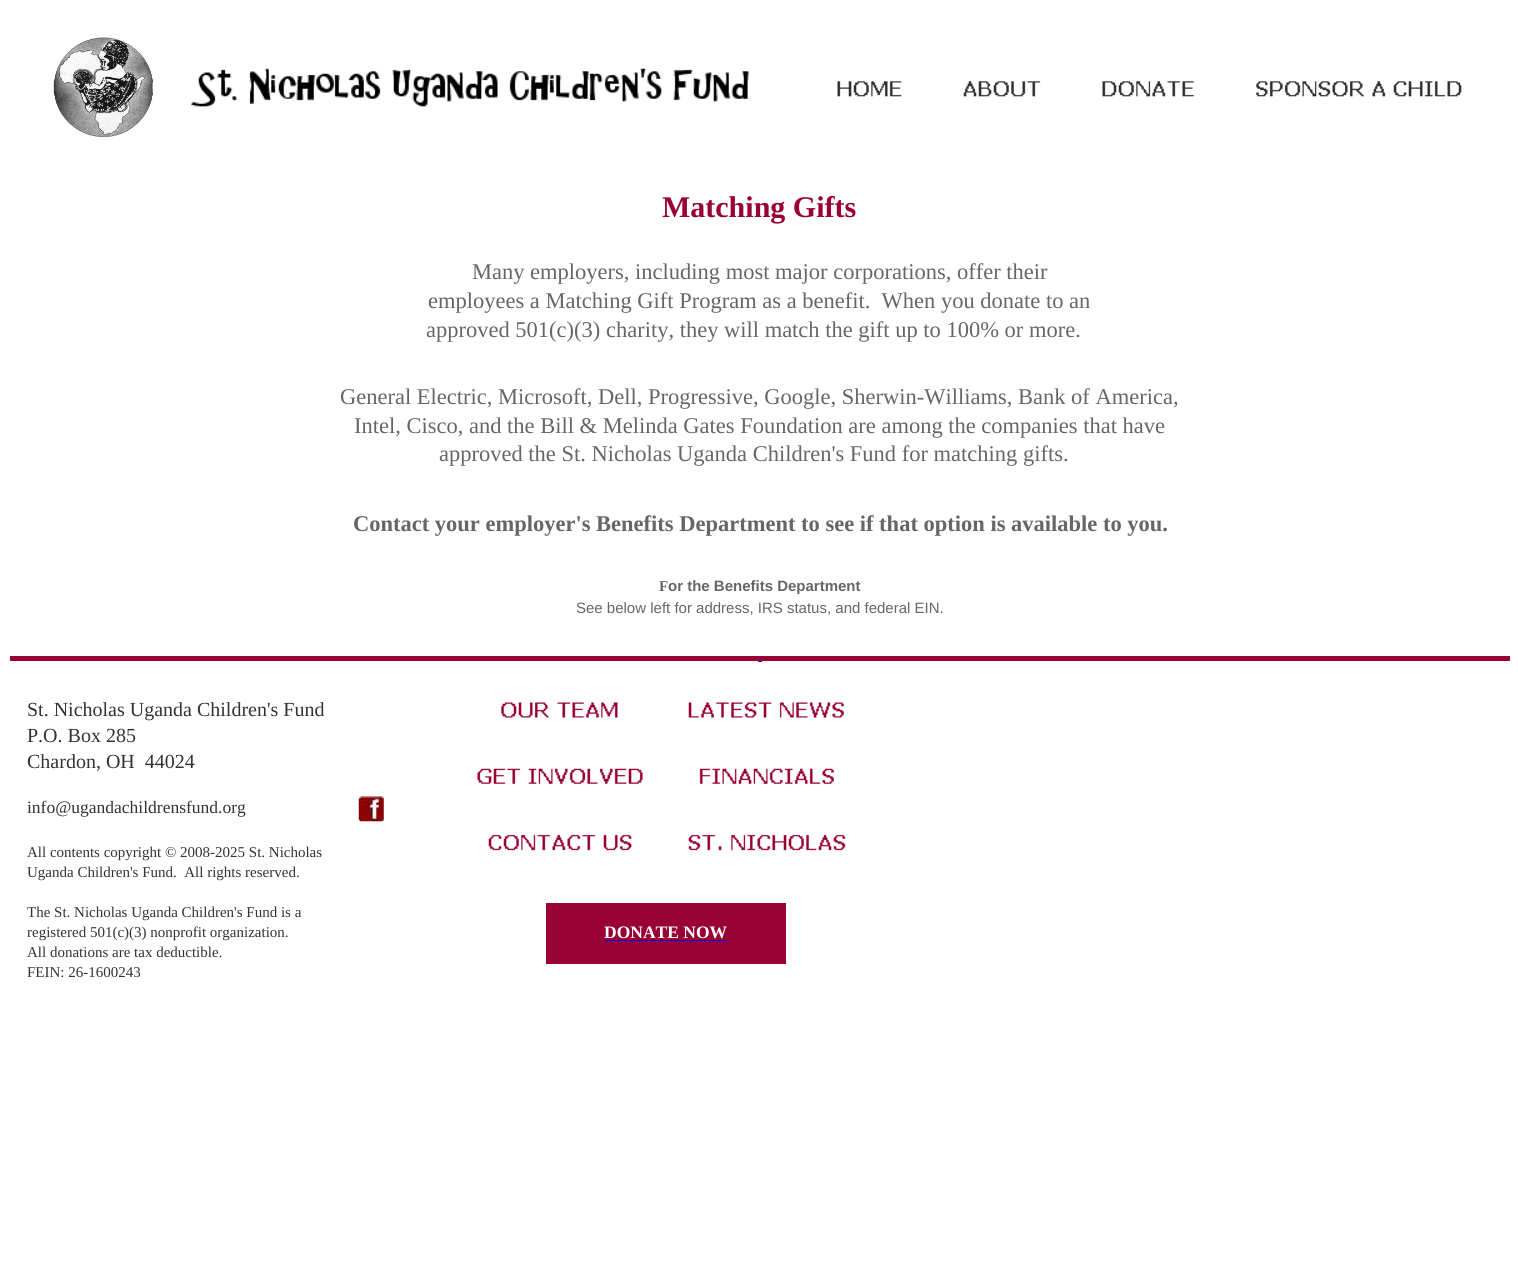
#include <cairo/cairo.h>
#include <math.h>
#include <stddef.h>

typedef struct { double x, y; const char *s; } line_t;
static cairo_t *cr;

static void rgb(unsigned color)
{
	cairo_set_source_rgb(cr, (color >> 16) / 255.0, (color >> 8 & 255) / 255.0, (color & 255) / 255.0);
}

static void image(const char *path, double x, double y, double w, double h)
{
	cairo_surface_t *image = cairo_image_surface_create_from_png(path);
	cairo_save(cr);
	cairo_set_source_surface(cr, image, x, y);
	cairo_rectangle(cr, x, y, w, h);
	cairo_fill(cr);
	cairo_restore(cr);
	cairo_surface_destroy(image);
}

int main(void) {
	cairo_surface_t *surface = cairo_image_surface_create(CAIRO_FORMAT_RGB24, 1518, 1284);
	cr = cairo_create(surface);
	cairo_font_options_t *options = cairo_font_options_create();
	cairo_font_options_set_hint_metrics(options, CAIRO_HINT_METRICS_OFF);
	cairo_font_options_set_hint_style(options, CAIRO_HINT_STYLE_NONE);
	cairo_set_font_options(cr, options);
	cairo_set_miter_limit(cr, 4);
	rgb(0xffffff);
	cairo_paint(cr);
	image("img/1.png", 53, 37, 100, 100);
	image("img/2.png", 191, 68, 558, 39);
	image("img/3.png", 837, 81, 65, 16);
	image("img/4.png", 963, 81, 78, 16);
	image("img/5.png", 1102, 81, 92, 16);
	image("img/6.png", 1256, 81, 206, 16);
	rgb(0x990033);
	cairo_rectangle(cr, 10, 656, 1500, 5);
	cairo_fill(cr);
	rgb(0x0000ff);
	cairo_arc(cr, 758.5, 661.5, 0.5, 0, 2 * M_PI);
	cairo_fill(cr);
	cairo_rectangle(cr, 759, 661, 3, 1);
	cairo_fill(cr);
	image("img/7.png", 358, 796, 26, 26);
	image("img/8.png", 501, 702, 117, 16);
	image("img/9.png", 477, 768, 166, 16);
	image("img/10.png", 488, 834, 144, 17);
	image("img/11.png", 688, 702, 156, 16);
	image("img/12.png", 699, 768, 135, 16);
	image("img/13.png", 688, 834, 158, 17);
	rgb(0x990033);
	cairo_rectangle(cr, 546, 903, 240, 61);
	cairo_fill(cr);
	rgb(0x0000ff);
	cairo_rectangle(cr, 604, 940, 124, 1);
	cairo_fill(cr);
	cairo_select_font_face(cr, "Liberation Serif", CAIRO_FONT_SLANT_NORMAL, CAIRO_FONT_WEIGHT_BOLD);
	cairo_set_font_size(cr, 30);
	rgb(0x990033);
	cairo_move_to(cr, 662, 217);
	cairo_show_text(cr, "Matching Gifts");
	cairo_select_font_face(cr, "Liberation Serif", CAIRO_FONT_SLANT_NORMAL, CAIRO_FONT_WEIGHT_NORMAL);
	cairo_set_font_size(cr, 22.5);
	rgb(0x666666);
	{
		static const line_t items[] = {
			{472, 279, "Many employers, including most major corporations, offer their"},
			{428, 308, "employees a Matching Gift Program as a benefit.  When you donate to an"},
			{426, 337, "approved 501(c)(3) charity, they will match the gift up to 100% or more."},
			{340, 404, "General Electric, Microsoft, Dell, Progressive, Google, Sherwin-Williams, Bank of America,"},
			{354, 433, "Intel, Cisco, and the Bill & Melinda Gates Foundation are among the companies that have"},
			{439, 461, "approved the St. Nicholas Uganda Children's Fund for matching gifts."},
		};
		for (size_t i = 0; i < sizeof items / sizeof *items; i++) {
			cairo_move_to(cr, items[i].x, items[i].y);
			cairo_show_text(cr, items[i].s);
		}
	}
	cairo_select_font_face(cr, "Liberation Serif", CAIRO_FONT_SLANT_NORMAL, CAIRO_FONT_WEIGHT_BOLD);
	cairo_move_to(cr, 353, 531);
	cairo_show_text(cr, "Contact your employer's Benefits Department to see if that option is available to you.");
	cairo_set_font_size(cr, 15);
	cairo_move_to(cr, 659, 591);
	cairo_show_text(cr, "F");
	cairo_select_font_face(cr, "Liberation Sans", CAIRO_FONT_SLANT_NORMAL, CAIRO_FONT_WEIGHT_BOLD);
	cairo_move_to(cr, 668, 591);
	cairo_show_text(cr, "or the Benefits Department");
	cairo_select_font_face(cr, "Liberation Sans", CAIRO_FONT_SLANT_NORMAL, CAIRO_FONT_WEIGHT_NORMAL);
	cairo_move_to(cr, 576, 613);
	cairo_show_text(cr, "See below left for address, IRS status, and federal EIN.");
	cairo_select_font_face(cr, "Liberation Serif", CAIRO_FONT_SLANT_NORMAL, CAIRO_FONT_WEIGHT_NORMAL);
	cairo_set_font_size(cr, 20);
	rgb(0x333333);
	{
		static const line_t items[] = {
			{27, 716, "St. Nicholas Uganda Children's Fund"},
			{27, 742, "P.O. Box 285"},
			{27, 768, "Chardon, OH  44024"},
		};
		for (size_t i = 0; i < sizeof items / sizeof *items; i++) {
			cairo_move_to(cr, items[i].x, items[i].y);
			cairo_show_text(cr, items[i].s);
		}
	}
	cairo_set_font_size(cr, 17.5);
	cairo_move_to(cr, 27, 813);
	cairo_show_text(cr, "info@ugandachildrensfund.org");
	cairo_set_font_size(cr, 15);
	{
		static const line_t items[] = {
			{27, 857, "All contents copyright © 2008-2025 St. Nicholas"},
			{27, 877, "Uganda Children's Fund.  All rights reserved."},
			{27, 917, "The St. Nicholas Uganda Children's Fund is a"},
			{27, 937, "registered 501(c)(3) nonprofit organization."},
			{27, 957, "All donations are tax deductible."},
			{27, 977, "FEIN: 26-1600243"},
		};
		for (size_t i = 0; i < sizeof items / sizeof *items; i++) {
			cairo_move_to(cr, items[i].x, items[i].y);
			cairo_show_text(cr, items[i].s);
		}
	}
	cairo_select_font_face(cr, "Liberation Serif", CAIRO_FONT_SLANT_NORMAL, CAIRO_FONT_WEIGHT_BOLD);
	cairo_set_font_size(cr, 17.5);
	rgb(0xffffff);
	cairo_move_to(cr, 604, 938);
	cairo_show_text(cr, "DONATE NOW");
	cairo_surface_write_to_png(surface, "page.png");
	cairo_font_options_destroy(options);
	cairo_destroy(cr);
	cairo_surface_destroy(surface);
	return 0;
}
